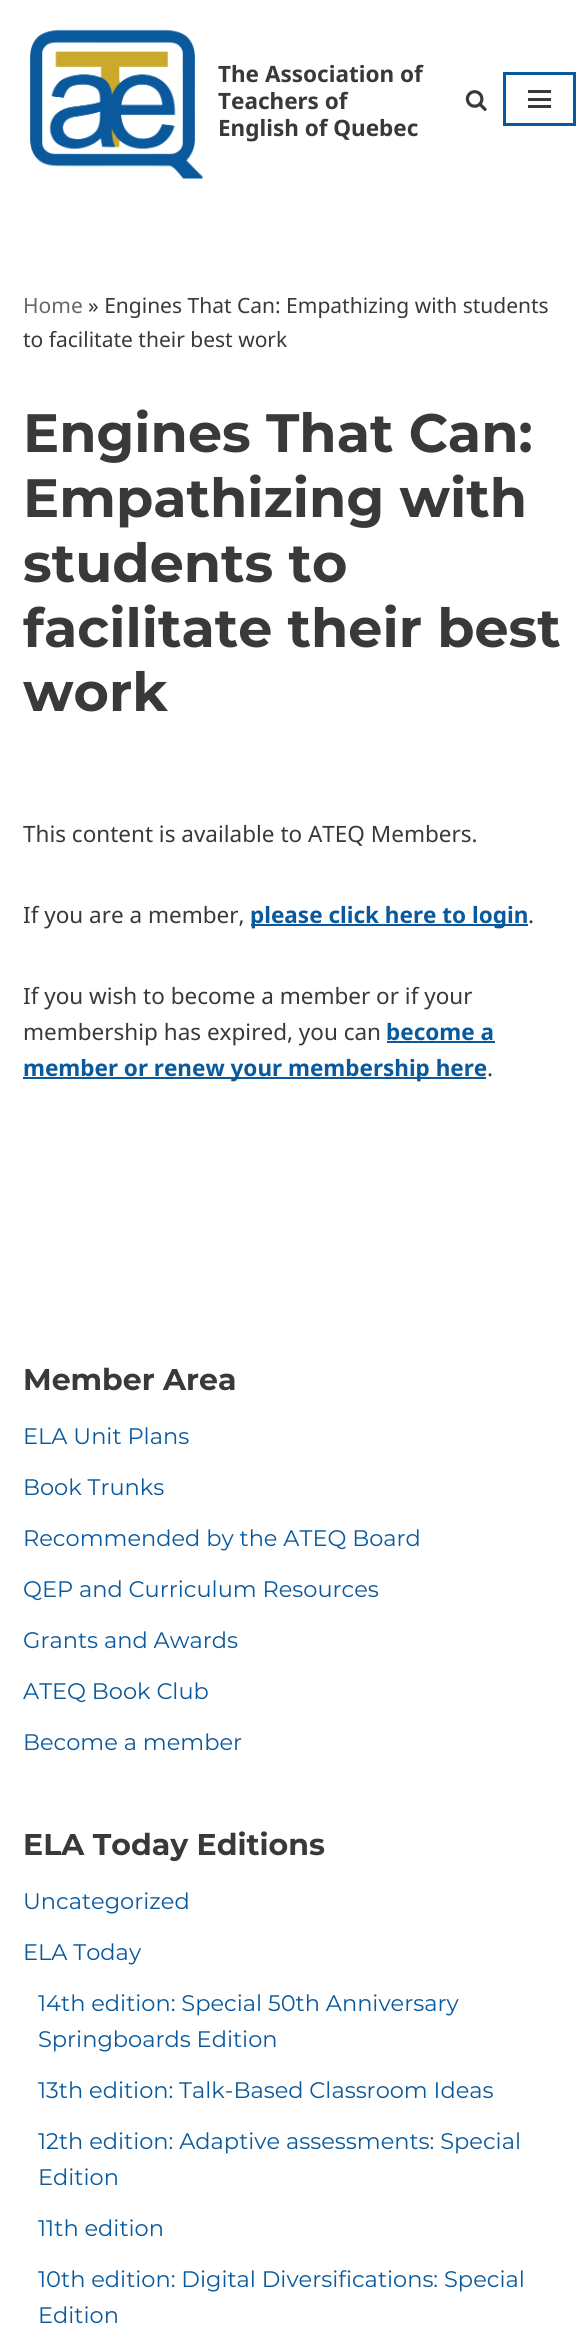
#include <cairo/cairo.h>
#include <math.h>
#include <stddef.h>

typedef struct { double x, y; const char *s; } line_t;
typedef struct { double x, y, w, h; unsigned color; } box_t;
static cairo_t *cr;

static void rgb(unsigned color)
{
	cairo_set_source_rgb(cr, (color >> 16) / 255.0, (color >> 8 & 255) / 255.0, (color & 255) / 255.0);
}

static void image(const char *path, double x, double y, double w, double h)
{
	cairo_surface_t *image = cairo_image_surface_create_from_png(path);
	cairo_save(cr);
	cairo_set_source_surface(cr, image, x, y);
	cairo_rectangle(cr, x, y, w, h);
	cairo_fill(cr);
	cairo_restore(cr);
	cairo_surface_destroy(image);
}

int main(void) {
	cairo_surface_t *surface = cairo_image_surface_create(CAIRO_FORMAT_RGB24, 584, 2348);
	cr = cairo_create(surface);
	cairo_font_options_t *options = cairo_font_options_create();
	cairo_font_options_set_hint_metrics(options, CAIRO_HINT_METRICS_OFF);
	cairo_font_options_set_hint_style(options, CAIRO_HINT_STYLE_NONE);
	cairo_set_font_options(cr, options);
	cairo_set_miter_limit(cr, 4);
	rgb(0xffffff);
	cairo_paint(cr);
	image("img/1.png", 30, 29, 173, 150);
	image("img/2.png", 465, 90, 22, 21);
	cairo_rectangle(cr, 504.5, 73.5, 70, 51);
	rgb(0x09599c);
	cairo_set_line_width(cr, 3);
	cairo_stroke(cr);
	{
		static const box_t items[] = {
			{528, 90, 23, 3, 0x393939},
			{528, 98, 23, 3, 0x393939},
			{528, 105, 23, 3, 0x393939},
			{251, 924, 277, 2, 0x09599c},
			{387, 1041, 108, 2, 0x09599c},
			{23, 1077, 463, 2, 0x09599c},
		};
		for (size_t i = 0; i < sizeof items / sizeof *items; i++) {
			rgb(items[i].color);
			cairo_rectangle(cr, items[i].x, items[i].y, items[i].w, items[i].h);
			cairo_fill(cr);
		}
	}
	cairo_select_font_face(cr, "Noto Sans", CAIRO_FONT_SLANT_NORMAL, CAIRO_FONT_WEIGHT_BOLD);
	cairo_set_font_size(cr, 22.5);
	rgb(0x393939);
	{
		static const line_t items[] = {
			{218, 82, "The Association of"},
			{218, 109, "Teachers of"},
			{218, 136, "English of Quebec"},
		};
		for (size_t i = 0; i < sizeof items / sizeof *items; i++) {
			cairo_move_to(cr, items[i].x, items[i].y);
			cairo_show_text(cr, items[i].s);
		}
	}
	cairo_select_font_face(cr, "Noto Sans", CAIRO_FONT_SLANT_NORMAL, CAIRO_FONT_WEIGHT_NORMAL);
	cairo_set_font_size(cr, 21);
	rgb(0x676767);
	cairo_move_to(cr, 23, 313);
	cairo_show_text(cr, "Home");
	rgb(0x393939);
	cairo_move_to(cr, 88, 313);
	cairo_show_text(cr, "» Engines That Can: Empathizing with students");
	cairo_move_to(cr, 23, 347);
	cairo_show_text(cr, "to facilitate their best work");
	cairo_select_font_face(cr, "Montserrat", CAIRO_FONT_SLANT_NORMAL, CAIRO_FONT_WEIGHT_BOLD);
	cairo_set_font_size(cr, 54);
	{
		static const line_t items[] = {
			{23, 452, "Engines That Can:"},
			{23, 517, "Empathizing with"},
			{23, 582, "students to"},
			{23, 647, "facilitate their best"},
			{23, 711, "work"},
		};
		for (size_t i = 0; i < sizeof items / sizeof *items; i++) {
			cairo_move_to(cr, items[i].x, items[i].y);
			cairo_show_text(cr, items[i].s);
		}
	}
	cairo_select_font_face(cr, "Noto Sans", CAIRO_FONT_SLANT_NORMAL, CAIRO_FONT_WEIGHT_NORMAL);
	cairo_set_font_size(cr, 22.5);
	cairo_move_to(cr, 23, 842);
	cairo_show_text(cr, "This content is available to ATEQ Members.");
	cairo_move_to(cr, 23, 923);
	cairo_show_text(cr, "If you are a member,");
	cairo_select_font_face(cr, "Noto Sans", CAIRO_FONT_SLANT_NORMAL, CAIRO_FONT_WEIGHT_BOLD);
	rgb(0x09599c);
	cairo_move_to(cr, 250, 923);
	cairo_show_text(cr, "please click here to login");
	cairo_select_font_face(cr, "Noto Sans", CAIRO_FONT_SLANT_NORMAL, CAIRO_FONT_WEIGHT_NORMAL);
	rgb(0x393939);
	{
		static const line_t items[] = {
			{528, 923, "."},
			{23, 1004, "If you wish to become a member or if your"},
			{23, 1040, "membership has expired, you can"},
		};
		for (size_t i = 0; i < sizeof items / sizeof *items; i++) {
			cairo_move_to(cr, items[i].x, items[i].y);
			cairo_show_text(cr, items[i].s);
		}
	}
	cairo_select_font_face(cr, "Noto Sans", CAIRO_FONT_SLANT_NORMAL, CAIRO_FONT_WEIGHT_BOLD);
	rgb(0x09599c);
	cairo_move_to(cr, 386, 1040);
	cairo_show_text(cr, "become a");
	cairo_move_to(cr, 23, 1076);
	cairo_show_text(cr, "member or renew your membership here");
	cairo_select_font_face(cr, "Noto Sans", CAIRO_FONT_SLANT_NORMAL, CAIRO_FONT_WEIGHT_NORMAL);
	rgb(0x393939);
	cairo_move_to(cr, 487, 1076);
	cairo_show_text(cr, ".");
	cairo_select_font_face(cr, "Montserrat", CAIRO_FONT_SLANT_NORMAL, CAIRO_FONT_WEIGHT_BOLD);
	cairo_set_font_size(cr, 30);
	cairo_move_to(cr, 23, 1390);
	cairo_show_text(cr, "Member Area");
	cairo_select_font_face(cr, "Montserrat", CAIRO_FONT_SLANT_NORMAL, CAIRO_FONT_WEIGHT_NORMAL);
	cairo_set_font_size(cr, 22.5);
	rgb(0x09599c);
	{
		static const line_t items[] = {
			{23, 1444, "ELA Unit Plans"},
			{23, 1495, "Book Trunks"},
			{23, 1546, "Recommended by the ATEQ Board"},
			{23, 1597, "QEP and Curriculum Resources"},
			{23, 1648, "Grants and Awards"},
			{23, 1699, "ATEQ Book Club"},
			{23, 1750, "Become a member"},
		};
		for (size_t i = 0; i < sizeof items / sizeof *items; i++) {
			cairo_move_to(cr, items[i].x, items[i].y);
			cairo_show_text(cr, items[i].s);
		}
	}
	cairo_select_font_face(cr, "Montserrat", CAIRO_FONT_SLANT_NORMAL, CAIRO_FONT_WEIGHT_BOLD);
	cairo_set_font_size(cr, 30);
	rgb(0x393939);
	cairo_move_to(cr, 23, 1855);
	cairo_show_text(cr, "ELA Today Editions");
	cairo_select_font_face(cr, "Montserrat", CAIRO_FONT_SLANT_NORMAL, CAIRO_FONT_WEIGHT_NORMAL);
	cairo_set_font_size(cr, 22.5);
	rgb(0x09599c);
	{
		static const line_t items[] = {
			{23, 1909, "Uncategorized"},
			{23, 1960, "ELA Today"},
			{38, 2011, "14th edition: Special 50th Anniversary"},
			{38, 2047, "Springboards Edition"},
			{38, 2098, "13th edition: Talk-Based Classroom Ideas"},
			{38, 2149, "12th edition: Adaptive assessments: Special"},
			{38, 2185, "Edition"},
			{38, 2236, "11th edition"},
			{38, 2287, "10th edition: Digital Diversifications: Special"},
			{38, 2323, "Edition"},
		};
		for (size_t i = 0; i < sizeof items / sizeof *items; i++) {
			cairo_move_to(cr, items[i].x, items[i].y);
			cairo_show_text(cr, items[i].s);
		}
	}
	cairo_surface_write_to_png(surface, "page.png");
	cairo_font_options_destroy(options);
	cairo_destroy(cr);
	cairo_surface_destroy(surface);
	return 0;
}
